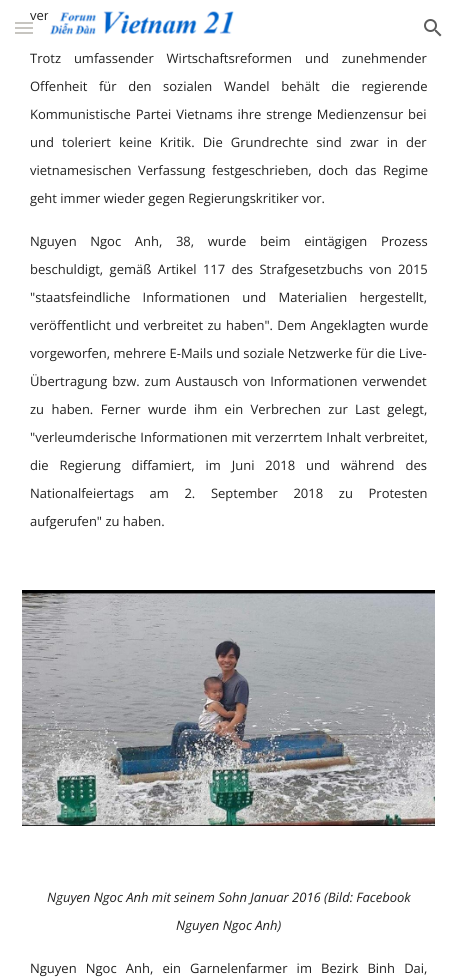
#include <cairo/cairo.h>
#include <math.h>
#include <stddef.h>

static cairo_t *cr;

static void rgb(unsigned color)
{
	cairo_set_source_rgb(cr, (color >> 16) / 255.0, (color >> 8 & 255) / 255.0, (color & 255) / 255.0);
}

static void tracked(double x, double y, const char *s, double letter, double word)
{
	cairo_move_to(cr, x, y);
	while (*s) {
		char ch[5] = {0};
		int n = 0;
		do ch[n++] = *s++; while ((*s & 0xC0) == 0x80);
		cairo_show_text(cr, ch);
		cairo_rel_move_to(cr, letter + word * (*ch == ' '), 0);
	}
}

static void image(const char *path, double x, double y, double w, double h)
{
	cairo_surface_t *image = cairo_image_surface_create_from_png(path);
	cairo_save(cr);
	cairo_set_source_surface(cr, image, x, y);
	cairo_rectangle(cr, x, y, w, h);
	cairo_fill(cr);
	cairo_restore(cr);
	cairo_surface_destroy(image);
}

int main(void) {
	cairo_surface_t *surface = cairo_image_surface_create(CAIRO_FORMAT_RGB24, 457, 980);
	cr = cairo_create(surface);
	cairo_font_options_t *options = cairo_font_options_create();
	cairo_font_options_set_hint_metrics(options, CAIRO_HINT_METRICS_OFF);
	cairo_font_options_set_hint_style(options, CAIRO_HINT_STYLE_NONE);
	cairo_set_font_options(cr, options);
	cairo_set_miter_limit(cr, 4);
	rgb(0xffffff);
	cairo_paint(cr);
	rgb(0xc0bdb8);
	cairo_rectangle(cr, 15, 22, 18, 2);
	cairo_fill(cr);
	cairo_rectangle(cr, 15, 27, 18, 2);
	cairo_fill(cr);
	cairo_rectangle(cr, 15, 32, 18, 2);
	cairo_fill(cr);
	cairo_set_source_rgba(cr, 1, 1, 1, 0.12);
	cairo_rectangle(cr, 15, 13, 25, 21);
	cairo_fill(cr);
	image("img/2.png", 424, 19, 18, 18);
	image("img/3.png", 22, 590, 413, 236);
	cairo_select_font_face(cr, "Open Sans", CAIRO_FONT_SLANT_NORMAL, CAIRO_FONT_WEIGHT_NORMAL);
	cairo_set_font_size(cr, 13);
	rgb(0x212121);
	cairo_move_to(cr, 30, 20);
	cairo_show_text(cr, "ver");
	image("img/1.png", 47, 10, 187, 25);
	tracked(30, 63, "Trotz umfassender Wirtschaftsreformen und zunehmender", 0, 9.5);
	tracked(30, 91, "Offenheit für den sozialen Wandel behält die regierende", 0, 8.25);
	tracked(30, 119, "Kommunistische Partei Vietnams ihre strenge Medienzensur bei", 0, 1.5);
	tracked(30, 147, "und toleriert keine Kritik. Die Grundrechte sind zwar in der", 0, 4.75);
	tracked(30, 175, "vietnamesischen Verfassung festgeschrieben, doch das Regime", 0, 3.25);
	cairo_move_to(cr, 30, 203);
	cairo_show_text(cr, "geht immer wieder gegen Regierungskritiker vor.");
	tracked(30, 246, "Nguyen Ngoc Anh, 38, wurde beim eintägigen Prozess", 0, 10.25);
	tracked(30, 274, "beschuldigt, gemäß Artikel 117 des Strafgesetzbuchs von 2015", 0, 3);
	tracked(30, 302, "\"staatsfeindliche Informationen und Materialien hergestellt,", 0, 9);
	tracked(30, 330, "veröffentlicht und verbreitet zu haben\". Dem Angeklagten wurde", 0, 1);
	cairo_move_to(cr, 30, 358);
	cairo_show_text(cr, "vorgeworfen, mehrere E-Mails und soziale Netzwerke für die Live-");
	tracked(30, 386, "Übertragung bzw. zum Austausch von Informationen verwendet", 0, 1.5);
	tracked(30, 414, "zu haben. Ferner wurde ihm ein Verbrechen zur Last gelegt,", 0, 4);
	tracked(30, 442, "\"verleumderische Informationen mit verzerrtem Inhalt verbreitet,", 0, 0.5);
	tracked(30, 470, "die Regierung diffamiert, im Juni 2018 und während des", 0, 7.5);
	tracked(30, 498, "Nationalfeiertags am 2. September 2018 zu Protesten", 0, 12.25);
	cairo_move_to(cr, 30, 526);
	cairo_show_text(cr, "aufgerufen\" zu haben.");
	cairo_select_font_face(cr, "Open Sans", CAIRO_FONT_SLANT_ITALIC, CAIRO_FONT_WEIGHT_NORMAL);
	cairo_move_to(cr, 47, 902);
	cairo_show_text(cr, "Nguyen Ngoc Anh mit seinem Sohn Januar 2016 (Bild: Facebook");
	cairo_move_to(cr, 176, 930);
	cairo_show_text(cr, "Nguyen Ngoc Anh)");
	cairo_select_font_face(cr, "Open Sans", CAIRO_FONT_SLANT_NORMAL, CAIRO_FONT_WEIGHT_NORMAL);
	tracked(30, 973, "Nguyen Ngoc Anh, ein Garnelenfarmer im Bezirk Binh Dai,", 0, 5.75);
	cairo_surface_write_to_png(surface, "page.png");
	cairo_font_options_destroy(options);
	cairo_destroy(cr);
	cairo_surface_destroy(surface);
	return 0;
}
